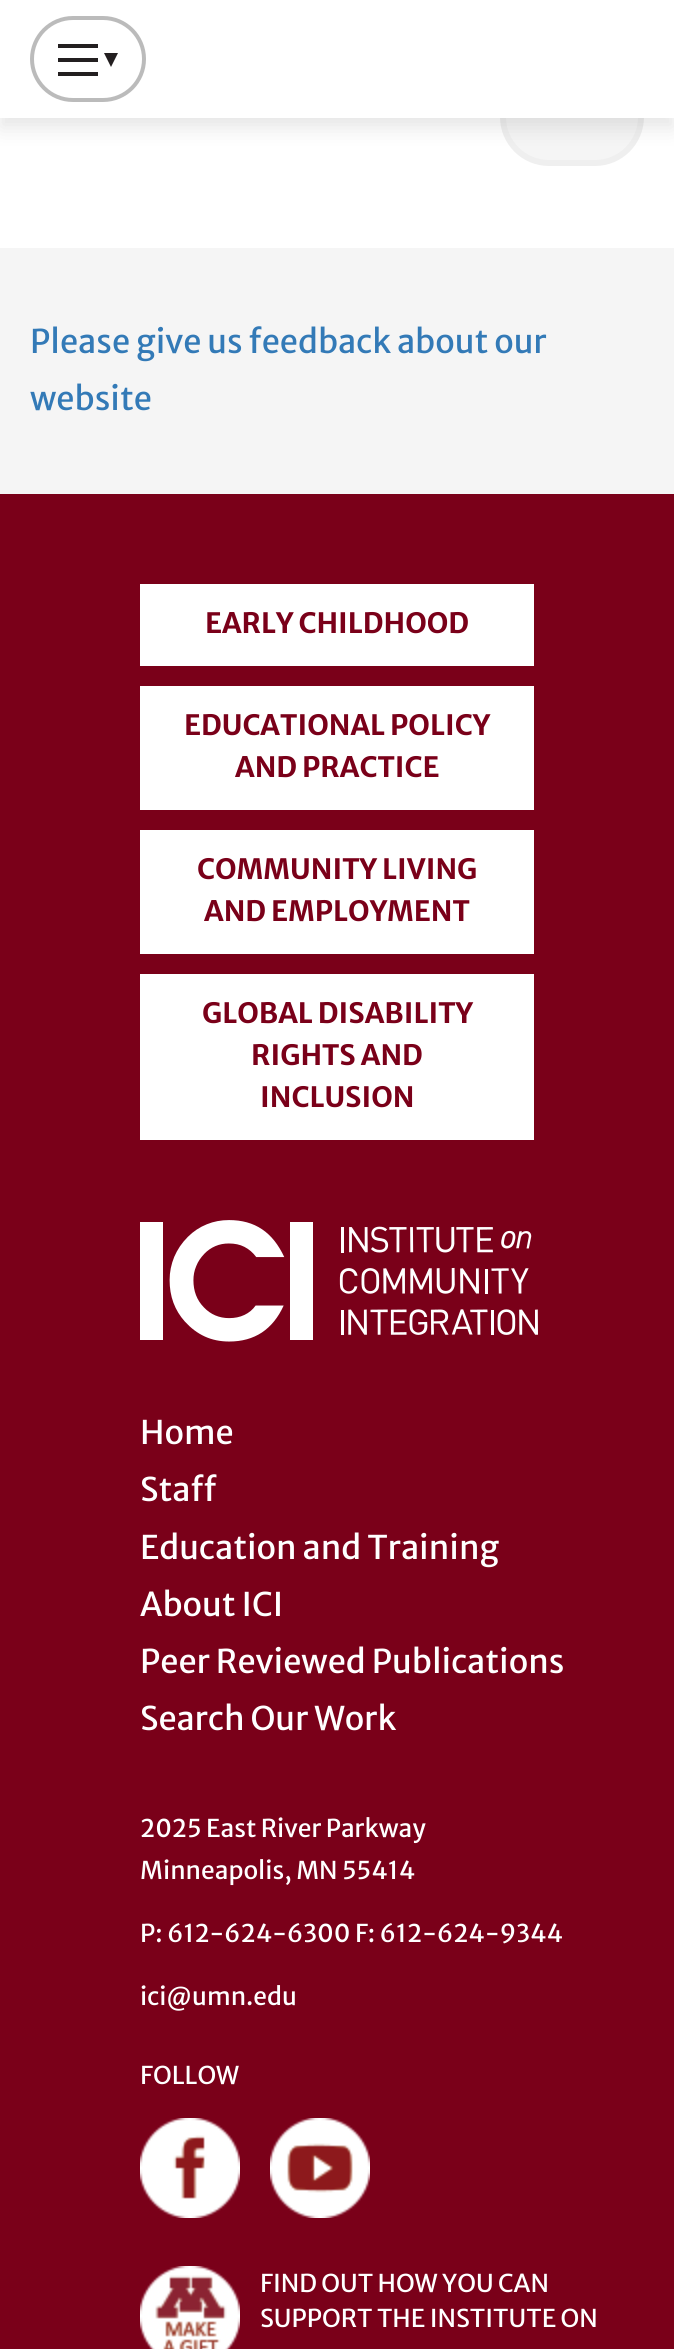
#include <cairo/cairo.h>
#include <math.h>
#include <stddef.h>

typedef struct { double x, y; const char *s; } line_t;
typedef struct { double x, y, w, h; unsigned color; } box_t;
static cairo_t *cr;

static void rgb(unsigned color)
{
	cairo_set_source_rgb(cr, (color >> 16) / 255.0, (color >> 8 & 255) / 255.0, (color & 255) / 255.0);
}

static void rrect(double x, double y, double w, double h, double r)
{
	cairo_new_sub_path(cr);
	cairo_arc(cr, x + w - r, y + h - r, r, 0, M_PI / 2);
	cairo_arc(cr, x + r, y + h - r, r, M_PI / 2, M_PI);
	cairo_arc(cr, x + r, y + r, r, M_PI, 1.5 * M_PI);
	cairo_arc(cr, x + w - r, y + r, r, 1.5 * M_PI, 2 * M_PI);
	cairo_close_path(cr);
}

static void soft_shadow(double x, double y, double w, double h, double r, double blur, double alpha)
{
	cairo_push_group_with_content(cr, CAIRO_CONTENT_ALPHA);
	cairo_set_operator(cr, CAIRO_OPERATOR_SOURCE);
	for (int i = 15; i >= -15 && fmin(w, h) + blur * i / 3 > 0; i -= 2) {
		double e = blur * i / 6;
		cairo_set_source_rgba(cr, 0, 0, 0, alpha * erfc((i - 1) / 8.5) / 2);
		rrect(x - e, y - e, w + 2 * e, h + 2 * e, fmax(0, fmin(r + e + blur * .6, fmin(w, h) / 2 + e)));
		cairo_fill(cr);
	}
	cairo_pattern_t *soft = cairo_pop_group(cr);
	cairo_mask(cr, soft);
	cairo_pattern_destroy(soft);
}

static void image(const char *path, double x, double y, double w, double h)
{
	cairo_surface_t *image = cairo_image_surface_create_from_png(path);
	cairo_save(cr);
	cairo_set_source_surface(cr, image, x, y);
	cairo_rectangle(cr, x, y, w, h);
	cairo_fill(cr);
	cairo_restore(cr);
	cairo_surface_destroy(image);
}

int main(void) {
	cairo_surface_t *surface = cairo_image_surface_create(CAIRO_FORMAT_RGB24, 674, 2349);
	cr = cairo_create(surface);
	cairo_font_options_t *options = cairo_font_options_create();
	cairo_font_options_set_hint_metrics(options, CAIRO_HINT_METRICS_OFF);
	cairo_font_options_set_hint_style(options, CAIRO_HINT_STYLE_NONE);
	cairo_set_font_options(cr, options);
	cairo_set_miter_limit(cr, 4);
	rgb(0xffffff);
	cairo_paint(cr);
	rgb(0xf5f5f5);
	rrect(503, 71, 138, 92, 46);
	cairo_fill_preserve(cr);
	rgb(0xefefef);
	cairo_set_line_width(cr, 6);
	cairo_stroke(cr);
	rgb(0x000000);
	soft_shadow(0, 10, 674, 118, 0, 10, 0.1);
	rgb(0xffffff);
	cairo_rectangle(cr, 0, 0, 674, 118);
	cairo_fill(cr);
	rrect(32, 18, 112, 82, 41);
	rgb(0xbbbbbb);
	cairo_set_line_width(cr, 4);
	cairo_stroke(cr);
	rgb(0x231f20);
	cairo_rectangle(cr, 58, 44, 40, 4);
	cairo_fill(cr);
	cairo_rectangle(cr, 58, 58, 40, 4);
	cairo_fill(cr);
	cairo_new_path(cr);
	cairo_move_to(cr, 111, 67);
	cairo_line_to(cr, 118, 53);
	cairo_line_to(cr, 104, 53);
	cairo_close_path(cr);
	cairo_fill(cr);
	{
		static const box_t items[] = {
			{58, 72, 40, 4, 0x231f20},
			{0, 248, 674, 246, 0xf5f5f5},
			{0, 494, 674, 1855, 0x7a0019},
			{140, 584, 394, 82, 0xffffff},
			{140, 686, 394, 124, 0xffffff},
			{140, 830, 394, 124, 0xffffff},
			{140, 974, 394, 166, 0xffffff},
		};
		for (size_t i = 0; i < sizeof items / sizeof *items; i++) {
			rgb(items[i].color);
			cairo_rectangle(cr, items[i].x, items[i].y, items[i].w, items[i].h);
			cairo_fill(cr);
		}
	}
	image("img/1.png", 140, 1220, 398, 122);
	image("img/2.png", 140, 2118, 100, 100);
	image("img/3.png", 270, 2118, 100, 100);
	image("img/4.png", 140, 2266, 100, 83);
	cairo_select_font_face(cr, "Merriweather Sans", CAIRO_FONT_SLANT_NORMAL, CAIRO_FONT_WEIGHT_NORMAL);
	cairo_set_font_size(cr, 32.6);
	rgb(0x337ab7);
	cairo_move_to(cr, 30, 353);
	cairo_show_text(cr, "Please give us feedback about our");
	cairo_move_to(cr, 30, 410);
	cairo_show_text(cr, "website");
	cairo_select_font_face(cr, "Merriweather Sans", CAIRO_FONT_SLANT_NORMAL, CAIRO_FONT_WEIGHT_BOLD);
	cairo_set_font_size(cr, 28);
	rgb(0x7a0019);
	{
		static const line_t items[] = {
			{205, 633, "EARLY CHILDHOOD"},
			{184, 735, "EDUCATIONAL POLICY"},
			{235, 777, "AND PRACTICE"},
			{197, 879, "COMMUNITY LIVING"},
			{204, 921, "AND EMPLOYMENT"},
			{202, 1023, "GLOBAL DISABILITY"},
			{251, 1065, "RIGHTS AND"},
			{260, 1107, "INCLUSION"},
		};
		for (size_t i = 0; i < sizeof items / sizeof *items; i++) {
			cairo_move_to(cr, items[i].x, items[i].y);
			cairo_show_text(cr, items[i].s);
		}
	}
	cairo_select_font_face(cr, "Merriweather Sans", CAIRO_FONT_SLANT_NORMAL, CAIRO_FONT_WEIGHT_NORMAL);
	cairo_set_font_size(cr, 32.6);
	rgb(0xffffff);
	{
		static const line_t items[] = {
			{140, 1444, "Home"},
			{140, 1501, "Staff"},
			{140, 1559, "Education and Training"},
			{140, 1616, "About ICI"},
			{140, 1673, "Peer Reviewed Publications"},
			{140, 1730, "Search Our Work"},
		};
		for (size_t i = 0; i < sizeof items / sizeof *items; i++) {
			cairo_move_to(cr, items[i].x, items[i].y);
			cairo_show_text(cr, items[i].s);
		}
	}
	cairo_set_font_size(cr, 24.5);
	{
		static const line_t items[] = {
			{140, 1837, "2025 East River Parkway"},
			{140, 1879, "Minneapolis, MN 55414"},
			{140, 1942, "P: 612-624-6300 F: 612-624-9344"},
			{140, 2005, "ici@umn.edu"},
			{140, 2084, "FOLLOW"},
			{260, 2292, "FIND OUT HOW YOU CAN"},
			{260, 2327, "SUPPORT THE INSTITUTE ON"},
		};
		for (size_t i = 0; i < sizeof items / sizeof *items; i++) {
			cairo_move_to(cr, items[i].x, items[i].y);
			cairo_show_text(cr, items[i].s);
		}
	}
	cairo_surface_write_to_png(surface, "page.png");
	cairo_font_options_destroy(options);
	cairo_destroy(cr);
	cairo_surface_destroy(surface);
	return 0;
}
